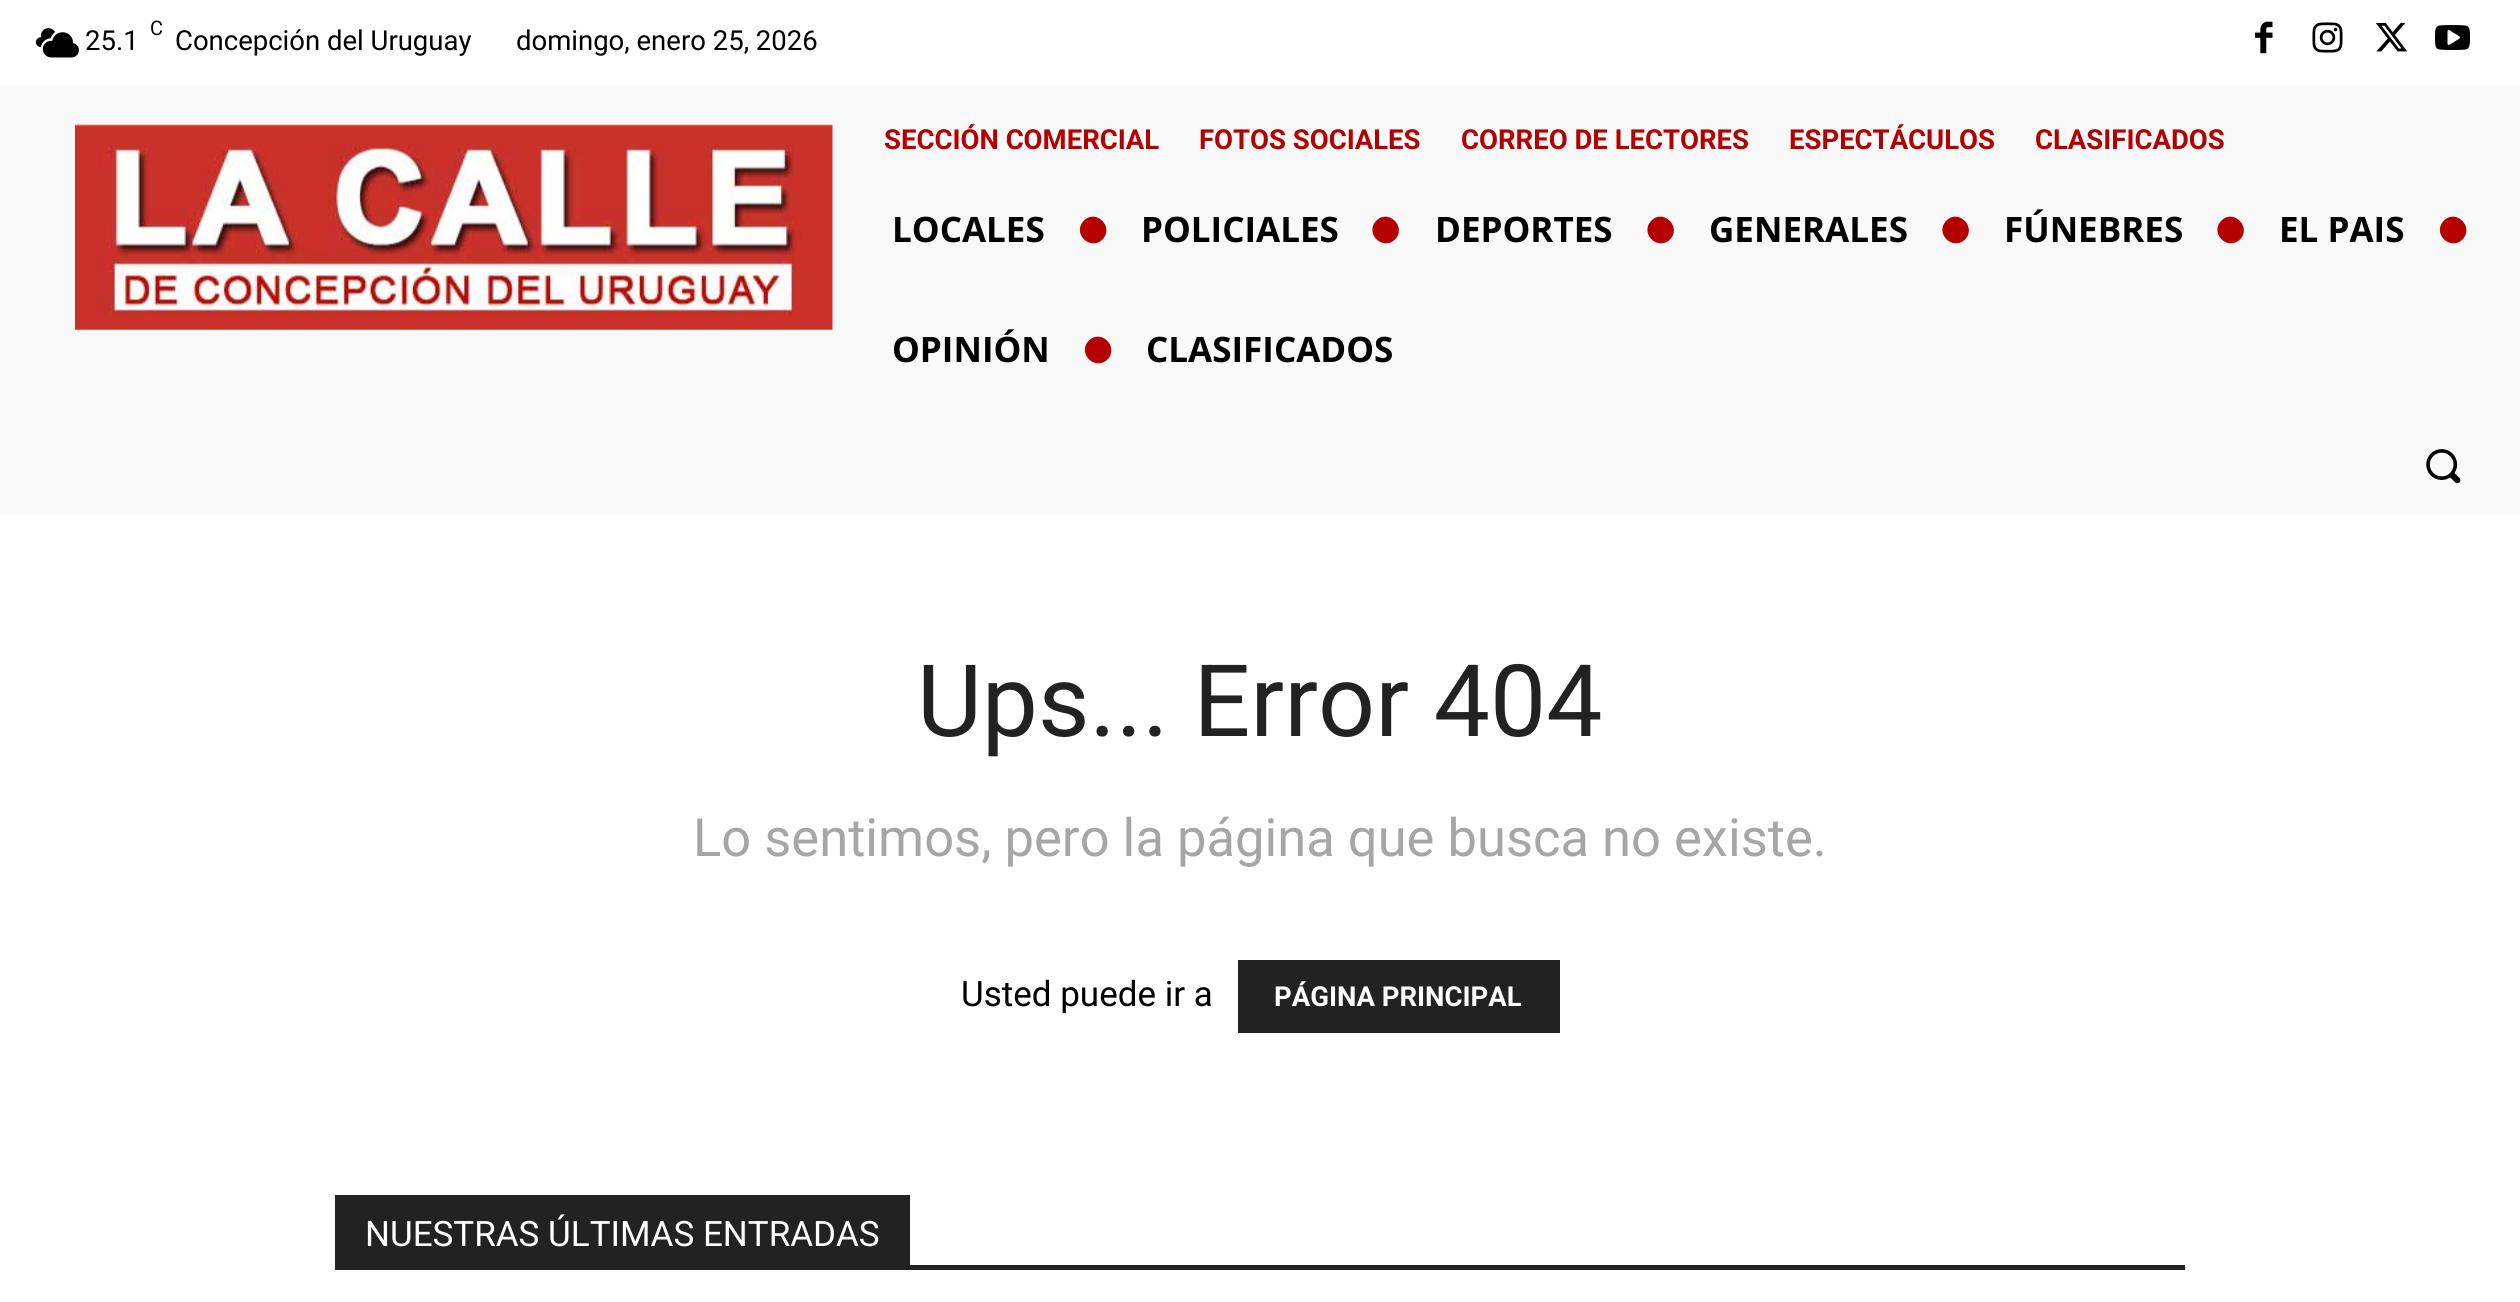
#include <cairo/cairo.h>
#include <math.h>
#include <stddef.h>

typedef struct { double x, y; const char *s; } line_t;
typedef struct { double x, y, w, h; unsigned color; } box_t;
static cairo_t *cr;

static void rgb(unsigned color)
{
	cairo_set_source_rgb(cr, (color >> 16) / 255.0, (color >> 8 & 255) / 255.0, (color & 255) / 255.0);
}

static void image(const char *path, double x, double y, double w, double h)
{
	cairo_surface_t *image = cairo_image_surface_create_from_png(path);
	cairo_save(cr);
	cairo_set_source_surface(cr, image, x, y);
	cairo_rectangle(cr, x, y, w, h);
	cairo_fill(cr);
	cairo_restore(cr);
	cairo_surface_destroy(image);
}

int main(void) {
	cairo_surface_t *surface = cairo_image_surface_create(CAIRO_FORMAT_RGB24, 2520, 1302);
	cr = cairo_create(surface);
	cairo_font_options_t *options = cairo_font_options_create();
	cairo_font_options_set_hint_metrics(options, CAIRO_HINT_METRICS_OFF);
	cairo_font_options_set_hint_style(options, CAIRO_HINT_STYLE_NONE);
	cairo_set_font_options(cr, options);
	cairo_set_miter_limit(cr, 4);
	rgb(0xffffff);
	cairo_paint(cr);
	image("img/1.png", 35, 28, 44, 30);
	image("img/2.png", 2255, 21, 18, 33);
	image("img/3.png", 2312, 22, 31, 31);
	image("img/4.png", 2376, 23, 32, 29);
	image("img/5.png", 2435, 25, 35, 25);
	rgb(0xf9f9f9);
	cairo_rectangle(cr, 0, 85, 2520, 430);
	cairo_fill(cr);
	image("img/6.png", 75, 124, 758, 206);
	rgb(0xb50000);
	cairo_new_path(cr);
	cairo_move_to(cr, 1084, 220.5);
	cairo_curve_to(cr, 1096, 208.5, 1114.5, 227, 1102.5, 239.5);
	cairo_curve_to(cr, 1090, 251.5, 1071.5, 233, 1084, 220.5);
	cairo_close_path(cr);
	cairo_fill(cr);
	cairo_new_path(cr);
	cairo_move_to(cr, 1376.5, 220.5);
	cairo_curve_to(cr, 1388.5, 208.5, 1407, 227, 1395, 239.5);
	cairo_curve_to(cr, 1382.5, 251.5, 1364, 233, 1376.5, 220.5);
	cairo_close_path(cr);
	cairo_fill(cr);
	cairo_new_path(cr);
	cairo_move_to(cr, 1651.5, 220.5);
	cairo_curve_to(cr, 1663.5, 208.5, 1682, 227, 1670, 239.5);
	cairo_curve_to(cr, 1657.5, 251.5, 1639, 233, 1651.5, 220.5);
	cairo_close_path(cr);
	cairo_fill(cr);
	cairo_new_path(cr);
	cairo_move_to(cr, 1946.5, 220.5);
	cairo_curve_to(cr, 1958.5, 208.5, 1977, 227, 1965, 239.5);
	cairo_curve_to(cr, 1952.5, 251.5, 1934, 233, 1946.5, 220.5);
	cairo_close_path(cr);
	cairo_fill(cr);
	cairo_new_path(cr);
	cairo_move_to(cr, 2221.5, 220.5);
	cairo_curve_to(cr, 2233.5, 208.5, 2252, 227, 2240, 239.5);
	cairo_curve_to(cr, 2227.5, 251.5, 2209, 233, 2221.5, 220.5);
	cairo_close_path(cr);
	cairo_fill(cr);
	cairo_new_path(cr);
	cairo_move_to(cr, 2444, 220.5);
	cairo_curve_to(cr, 2456, 208.5, 2474.5, 227, 2462.5, 239.5);
	cairo_curve_to(cr, 2450, 251.5, 2431.5, 233, 2444, 220.5);
	cairo_close_path(cr);
	cairo_fill(cr);
	cairo_new_path(cr);
	cairo_move_to(cr, 1089, 340.5);
	cairo_curve_to(cr, 1101, 328.5, 1119.5, 347, 1107.5, 359.5);
	cairo_curve_to(cr, 1095, 371.5, 1076.5, 353, 1089, 340.5);
	cairo_close_path(cr);
	cairo_fill(cr);
	image("img/7.png", 2426, 449, 35, 35);
	{
		static const box_t items[] = {
			{1238, 960, 322, 73, 0x222222},
			{335, 1265, 1850, 5, 0x222222},
			{335, 1195, 575, 70, 0x222222},
		};
		for (size_t i = 0; i < sizeof items / sizeof *items; i++) {
			rgb(items[i].color);
			cairo_rectangle(cr, items[i].x, items[i].y, items[i].w, items[i].h);
			cairo_fill(cr);
		}
	}
	cairo_select_font_face(cr, "Roboto", CAIRO_FONT_SLANT_NORMAL, CAIRO_FONT_WEIGHT_NORMAL);
	cairo_set_font_size(cr, 20);
	rgb(0x000000);
	cairo_move_to(cr, 150, 35);
	cairo_show_text(cr, "C");
	cairo_set_font_size(cr, 27.5);
	{
		static const line_t items[] = {
			{85, 50, "25.1"},
			{175, 50, "Concepción del Uruguay"},
			{516, 50, "domingo, enero 25, 2026"},
		};
		for (size_t i = 0; i < sizeof items / sizeof *items; i++) {
			cairo_move_to(cr, items[i].x, items[i].y);
			cairo_show_text(cr, items[i].s);
		}
	}
	cairo_select_font_face(cr, "Roboto", CAIRO_FONT_SLANT_NORMAL, CAIRO_FONT_WEIGHT_BOLD);
	rgb(0xb50000);
	{
		static const line_t items[] = {
			{884, 149, "SECCIÓN COMERCIAL"},
			{1199, 149, "FOTOS SOCIALES"},
			{1461, 149, "CORREO DE LECTORES"},
			{1789, 149, "ESPECTÁCULOS"},
			{2035, 149, "CLASIFICADOS"},
		};
		for (size_t i = 0; i < sizeof items / sizeof *items; i++) {
			cairo_move_to(cr, items[i].x, items[i].y);
			cairo_show_text(cr, items[i].s);
		}
	}
	cairo_select_font_face(cr, "Open Sans", CAIRO_FONT_SLANT_NORMAL, CAIRO_FONT_WEIGHT_BOLD);
	cairo_set_font_size(cr, 35);
	rgb(0x000000);
	{
		static const line_t items[] = {
			{892, 242, "LOCALES"},
			{1141, 242, "POLICIALES"},
			{1435, 242, "DEPORTES"},
			{1709, 242, "GENERALES"},
			{2004, 242, "FÚNEBRES"},
			{2279, 242, "EL PAIS"},
			{892, 362, "OPINIÓN"},
			{1146, 362, "CLASIFICADOS"},
		};
		for (size_t i = 0; i < sizeof items / sizeof *items; i++) {
			cairo_move_to(cr, items[i].x, items[i].y);
			cairo_show_text(cr, items[i].s);
		}
	}
	cairo_select_font_face(cr, "Roboto", CAIRO_FONT_SLANT_NORMAL, CAIRO_FONT_WEIGHT_NORMAL);
	cairo_set_font_size(cr, 100);
	rgb(0x222222);
	cairo_move_to(cr, 917, 736);
	cairo_show_text(cr, "Ups... Error 404");
	cairo_set_font_size(cr, 52.5);
	rgb(0xa6a6a6);
	cairo_move_to(cr, 693, 856);
	cairo_show_text(cr, "Lo sentimos, pero la página que busca no existe.");
	cairo_set_font_size(cr, 35);
	rgb(0x000000);
	cairo_move_to(cr, 961, 1006);
	cairo_show_text(cr, "Usted puede ir a");
	cairo_select_font_face(cr, "Roboto", CAIRO_FONT_SLANT_NORMAL, CAIRO_FONT_WEIGHT_BOLD);
	cairo_set_font_size(cr, 27.5);
	rgb(0xffffff);
	cairo_move_to(cr, 1274, 1006);
	cairo_show_text(cr, "PÁGINA PRINCIPAL");
	cairo_select_font_face(cr, "Roboto", CAIRO_FONT_SLANT_NORMAL, CAIRO_FONT_WEIGHT_NORMAL);
	cairo_set_font_size(cr, 35);
	cairo_move_to(cr, 365, 1246);
	cairo_show_text(cr, "NUESTRAS ÚLTIMAS ENTRADAS");
	cairo_surface_write_to_png(surface, "page.png");
	cairo_font_options_destroy(options);
	cairo_destroy(cr);
	cairo_surface_destroy(surface);
	return 0;
}
